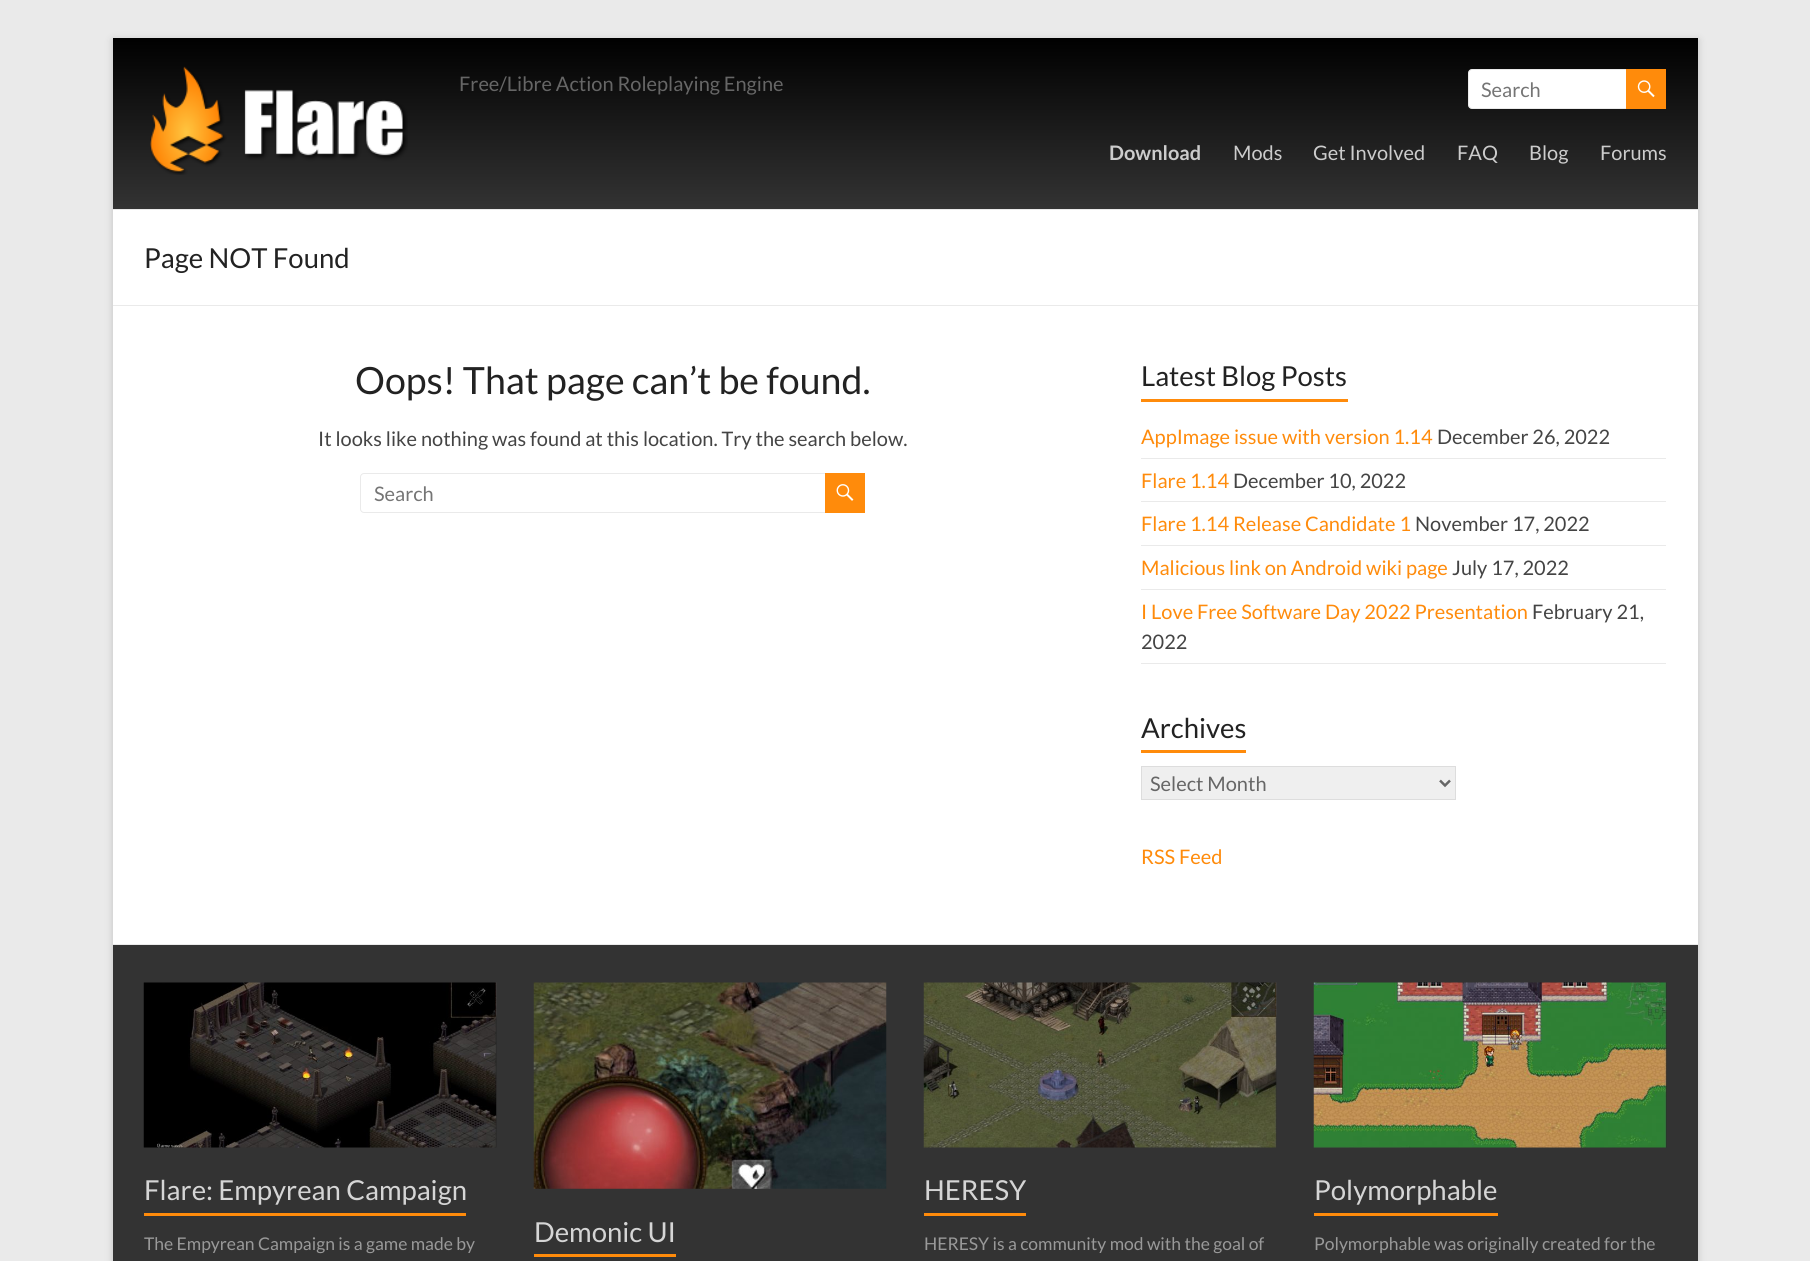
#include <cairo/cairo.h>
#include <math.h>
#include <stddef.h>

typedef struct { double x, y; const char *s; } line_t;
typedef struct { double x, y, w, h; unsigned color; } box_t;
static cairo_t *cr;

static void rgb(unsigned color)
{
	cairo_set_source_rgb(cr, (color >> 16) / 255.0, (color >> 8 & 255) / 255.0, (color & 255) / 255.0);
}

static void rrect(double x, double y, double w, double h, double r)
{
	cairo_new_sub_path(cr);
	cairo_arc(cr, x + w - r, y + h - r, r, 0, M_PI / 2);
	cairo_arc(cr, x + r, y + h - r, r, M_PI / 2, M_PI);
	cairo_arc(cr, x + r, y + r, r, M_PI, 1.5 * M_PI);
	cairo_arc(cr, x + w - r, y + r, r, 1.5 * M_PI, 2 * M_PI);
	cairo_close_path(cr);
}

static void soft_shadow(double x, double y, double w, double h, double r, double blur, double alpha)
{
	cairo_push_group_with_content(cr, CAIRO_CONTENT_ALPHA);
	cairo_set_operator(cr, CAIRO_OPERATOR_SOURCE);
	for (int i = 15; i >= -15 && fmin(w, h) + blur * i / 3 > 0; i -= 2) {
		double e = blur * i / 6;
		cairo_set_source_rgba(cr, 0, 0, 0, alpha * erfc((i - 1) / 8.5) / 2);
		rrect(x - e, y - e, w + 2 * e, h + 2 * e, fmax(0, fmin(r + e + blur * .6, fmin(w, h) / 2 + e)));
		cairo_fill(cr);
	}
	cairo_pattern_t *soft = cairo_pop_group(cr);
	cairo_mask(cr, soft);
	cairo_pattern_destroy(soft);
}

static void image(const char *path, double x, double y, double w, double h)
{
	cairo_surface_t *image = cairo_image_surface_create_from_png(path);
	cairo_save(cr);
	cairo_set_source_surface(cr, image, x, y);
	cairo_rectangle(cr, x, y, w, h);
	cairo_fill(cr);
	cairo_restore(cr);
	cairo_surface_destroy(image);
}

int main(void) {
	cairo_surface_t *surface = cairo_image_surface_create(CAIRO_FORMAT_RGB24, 1810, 1261);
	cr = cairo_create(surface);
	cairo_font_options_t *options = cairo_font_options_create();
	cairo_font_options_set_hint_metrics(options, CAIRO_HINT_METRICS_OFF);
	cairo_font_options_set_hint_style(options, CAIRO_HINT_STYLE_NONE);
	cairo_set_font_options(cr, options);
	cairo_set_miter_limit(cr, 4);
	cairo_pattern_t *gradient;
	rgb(0xeaeaea);
	cairo_paint(cr);
	rgb(0x646464);
	soft_shadow(113, 40, 1585, 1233, 0, 4, 0.3);
	rgb(0xffffff);
	cairo_rectangle(cr, 113, 210, 1585, 734);
	cairo_fill(cr);
	gradient = cairo_pattern_create_linear(905, 37, 905, 209);
	cairo_pattern_add_color_stop_rgba(gradient, 0, 0, 0, 0, 1);
	cairo_pattern_add_color_stop_rgba(gradient, 1, 0.2, 0.2, 0.2, 1);
	cairo_set_source(cr, gradient);
	cairo_pattern_destroy(gradient);
	cairo_rectangle(cr, 113, 38, 1585, 171);
	cairo_fill(cr);
	rgb(0xeaeaea);
	cairo_rectangle(cr, 113, 209, 1585, 1);
	cairo_fill(cr);
	image("img/1.png", 150, 66, 258, 109);
	rgb(0xffffff);
	rrect(1468.5, 69.5, 161, 39, 3.5);
	cairo_fill_preserve(cr);
	rgb(0xeaeaea);
	cairo_set_line_width(cr, 1);
	cairo_stroke(cr);
	rgb(0xff8b0b);
	cairo_rectangle(cr, 1626, 69, 40, 40);
	cairo_fill(cr);
	image("img/2.png", 1637, 80, 18, 18);
	rgb(0xeaeaea);
	cairo_rectangle(cr, 113, 305, 1585, 1);
	cairo_fill(cr);
	rrect(360.5, 473.5, 468, 39, 3.5);
	cairo_stroke(cr);
	rgb(0xff8b0b);
	cairo_rectangle(cr, 825, 473, 40, 40);
	cairo_fill(cr);
	image("img/3.png", 836, 484, 18, 17);
	{
		static const box_t items[] = {
			{1141, 399, 207, 3, 0xff8b0b},
			{1141, 458, 525, 1, 0xeaeaea},
			{1141, 501, 525, 1, 0xeaeaea},
			{1141, 545, 525, 1, 0xeaeaea},
			{1141, 589, 525, 1, 0xeaeaea},
			{1141, 663, 525, 1, 0xeaeaea},
			{1141, 750, 105, 3, 0xff8b0b},
		};
		for (size_t i = 0; i < sizeof items / sizeof *items; i++) {
			rgb(items[i].color);
			cairo_rectangle(cr, items[i].x, items[i].y, items[i].w, items[i].h);
			cairo_fill(cr);
		}
	}
	rgb(0xefefef);
	cairo_rectangle(cr, 1141.5, 766.5, 314, 33);
	cairo_fill_preserve(cr);
	rgb(0xdddddd);
	cairo_stroke(cr);
	cairo_new_path(cr);
	cairo_move_to(cr, 1440, 780.5);
	cairo_line_to(cr, 1445, 785.5);
	cairo_line_to(cr, 1450, 780.5);
	rgb(0x666666);
	cairo_set_line_width(cr, 2.5);
	cairo_stroke(cr);
	rgb(0x333333);
	cairo_rectangle(cr, 113, 945, 1585, 316);
	cairo_fill(cr);
	rgb(0xeaeaea);
	cairo_rectangle(cr, 113, 944, 1585, 1);
	cairo_fill(cr);
	image("img/4.png", 143, 982, 354, 166);
	rgb(0xff8b0b);
	cairo_rectangle(cr, 144, 1213, 322, 3);
	cairo_fill(cr);
	image("img/5.png", 533, 982, 354, 207);
	cairo_rectangle(cr, 534, 1254, 142, 3);
	cairo_fill(cr);
	image("img/6.png", 923, 982, 354, 166);
	cairo_rectangle(cr, 924, 1213, 102, 3);
	cairo_fill(cr);
	image("img/7.png", 1313, 982, 354, 166);
	cairo_rectangle(cr, 1314, 1213, 184, 3);
	cairo_fill(cr);
	cairo_select_font_face(cr, "Lato", CAIRO_FONT_SLANT_NORMAL, CAIRO_FONT_WEIGHT_NORMAL);
	cairo_set_font_size(cr, 20);
	rgb(0x666666);
	cairo_move_to(cr, 459, 91);
	cairo_show_text(cr, "Free/Libre Action Roleplaying Engine");
	rgb(0x757575);
	cairo_move_to(cr, 1481, 97);
	cairo_show_text(cr, "Search");
	cairo_select_font_face(cr, "Lato", CAIRO_FONT_SLANT_NORMAL, CAIRO_FONT_WEIGHT_BOLD);
	rgb(0xcccccc);
	cairo_move_to(cr, 1109, 160);
	cairo_show_text(cr, "Download");
	cairo_select_font_face(cr, "Lato", CAIRO_FONT_SLANT_NORMAL, CAIRO_FONT_WEIGHT_NORMAL);
	{
		static const line_t items[] = {
			{1233, 160, "Mods"},
			{1313, 160, "Get Involved"},
			{1457, 160, "FAQ"},
			{1529, 160, "Blog"},
			{1600, 160, "Forums"},
		};
		for (size_t i = 0; i < sizeof items / sizeof *items; i++) {
			cairo_move_to(cr, items[i].x, items[i].y);
			cairo_show_text(cr, items[i].s);
		}
	}
	cairo_set_font_size(cr, 27.5);
	rgb(0x222222);
	cairo_move_to(cr, 144, 268);
	cairo_show_text(cr, "Page NOT Found");
	cairo_set_font_size(cr, 37.5);
	cairo_move_to(cr, 355, 394);
	cairo_show_text(cr, "Oops! That page can’t be found.");
	cairo_set_font_size(cr, 20);
	rgb(0x444444);
	cairo_move_to(cr, 318, 446);
	cairo_show_text(cr, "It looks like nothing was found at this location. Try the search below.");
	rgb(0x757575);
	cairo_move_to(cr, 374, 501);
	cairo_show_text(cr, "Search");
	cairo_set_font_size(cr, 27.5);
	rgb(0x222222);
	cairo_move_to(cr, 1141, 386);
	cairo_show_text(cr, "Latest Blog Posts");
	cairo_set_font_size(cr, 20);
	rgb(0xff8b0b);
	cairo_move_to(cr, 1141, 444);
	cairo_show_text(cr, "AppImage issue with version 1.14");
	rgb(0x444444);
	cairo_move_to(cr, 1437, 444);
	cairo_show_text(cr, "December 26, 2022");
	rgb(0xff8b0b);
	cairo_move_to(cr, 1141, 488);
	cairo_show_text(cr, "Flare 1.14");
	rgb(0x444444);
	cairo_move_to(cr, 1233, 488);
	cairo_show_text(cr, "December 10, 2022");
	rgb(0xff8b0b);
	cairo_move_to(cr, 1141, 531);
	cairo_show_text(cr, "Flare 1.14 Release Candidate 1");
	rgb(0x444444);
	cairo_move_to(cr, 1415, 531);
	cairo_show_text(cr, "November 17, 2022");
	rgb(0xff8b0b);
	cairo_move_to(cr, 1141, 575);
	cairo_show_text(cr, "Malicious link on Android wiki page");
	rgb(0x444444);
	cairo_move_to(cr, 1452, 575);
	cairo_show_text(cr, "July 17, 2022");
	rgb(0xff8b0b);
	cairo_move_to(cr, 1141, 619);
	cairo_show_text(cr, "I Love Free Software Day 2022 Presentation");
	rgb(0x444444);
	cairo_move_to(cr, 1532, 619);
	cairo_show_text(cr, "February 21,");
	cairo_move_to(cr, 1141, 649);
	cairo_show_text(cr, "2022");
	cairo_set_font_size(cr, 27.5);
	rgb(0x222222);
	cairo_move_to(cr, 1141, 738);
	cairo_show_text(cr, "Archives");
	cairo_set_font_size(cr, 20);
	rgb(0x666666);
	cairo_move_to(cr, 1150, 791);
	cairo_show_text(cr, "Select Month");
	rgb(0xff8b0b);
	cairo_move_to(cr, 1141, 864);
	cairo_show_text(cr, "RSS Feed");
	cairo_set_font_size(cr, 27.5);
	rgb(0xd5d5d5);
	cairo_move_to(cr, 144, 1200);
	cairo_show_text(cr, "Flare: Empyrean Campaign");
	cairo_set_font_size(cr, 17.5);
	rgb(0x999999);
	cairo_move_to(cr, 144, 1250);
	cairo_show_text(cr, "The Empyrean Campaign is a game made by");
	cairo_set_font_size(cr, 27.5);
	rgb(0xd5d5d5);
	cairo_move_to(cr, 534, 1242);
	cairo_show_text(cr, "Demonic UI");
	cairo_move_to(cr, 924, 1200);
	cairo_show_text(cr, "HERESY");
	cairo_set_font_size(cr, 17.5);
	rgb(0x999999);
	cairo_move_to(cr, 924, 1250);
	cairo_show_text(cr, "HERESY is a community mod with the goal of");
	cairo_set_font_size(cr, 27.5);
	rgb(0xd5d5d5);
	cairo_move_to(cr, 1314, 1200);
	cairo_show_text(cr, "Polymorphable");
	cairo_set_font_size(cr, 17.5);
	rgb(0x999999);
	cairo_move_to(cr, 1314, 1250);
	cairo_show_text(cr, "Polymorphable was originally created for the");
	cairo_surface_write_to_png(surface, "page.png");
	cairo_font_options_destroy(options);
	cairo_destroy(cr);
	cairo_surface_destroy(surface);
	return 0;
}
